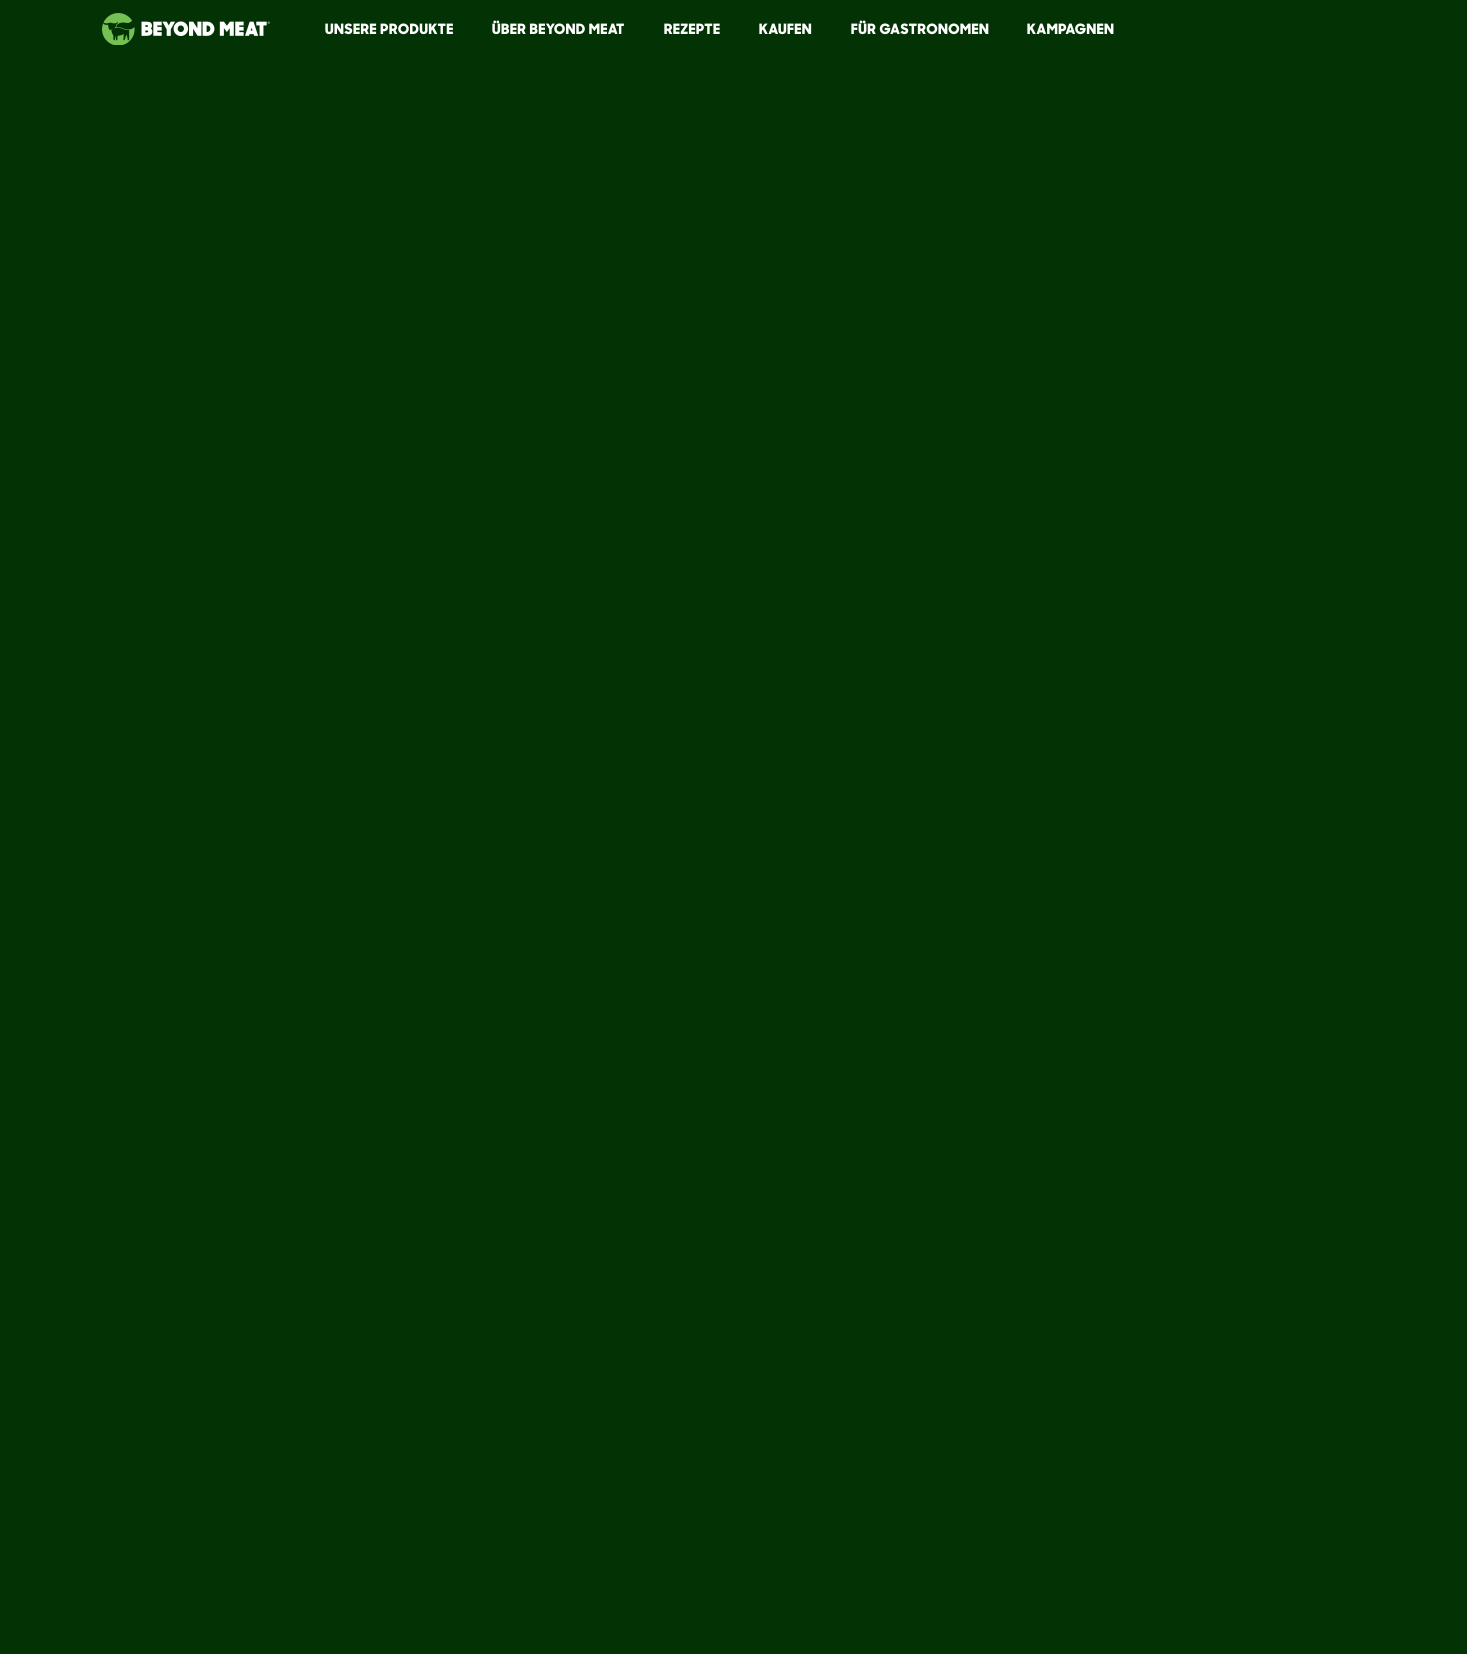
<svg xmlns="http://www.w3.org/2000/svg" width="1467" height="1654">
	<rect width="100%" height="100%" fill="#033305" />
	<image x="102" y="13" width="33" height="32" href="assets/img1.png" />
	<image x="141" y="21" width="129" height="16" href="assets/img2.png" />
	<image x="325" y="23" width="128" height="12" href="assets/img3.png" />
	<image x="492" y="20" width="132" height="15" href="assets/img4.png" />
	<image x="664" y="23" width="56" height="11" href="assets/img5.png" />
	<image x="759" y="23" width="53" height="12" href="assets/img6.png" />
	<image x="851" y="20" width="138" height="15" href="assets/img7.png" />
	<image x="1027" y="23" width="87" height="12" href="assets/img8.png" />
</svg>
